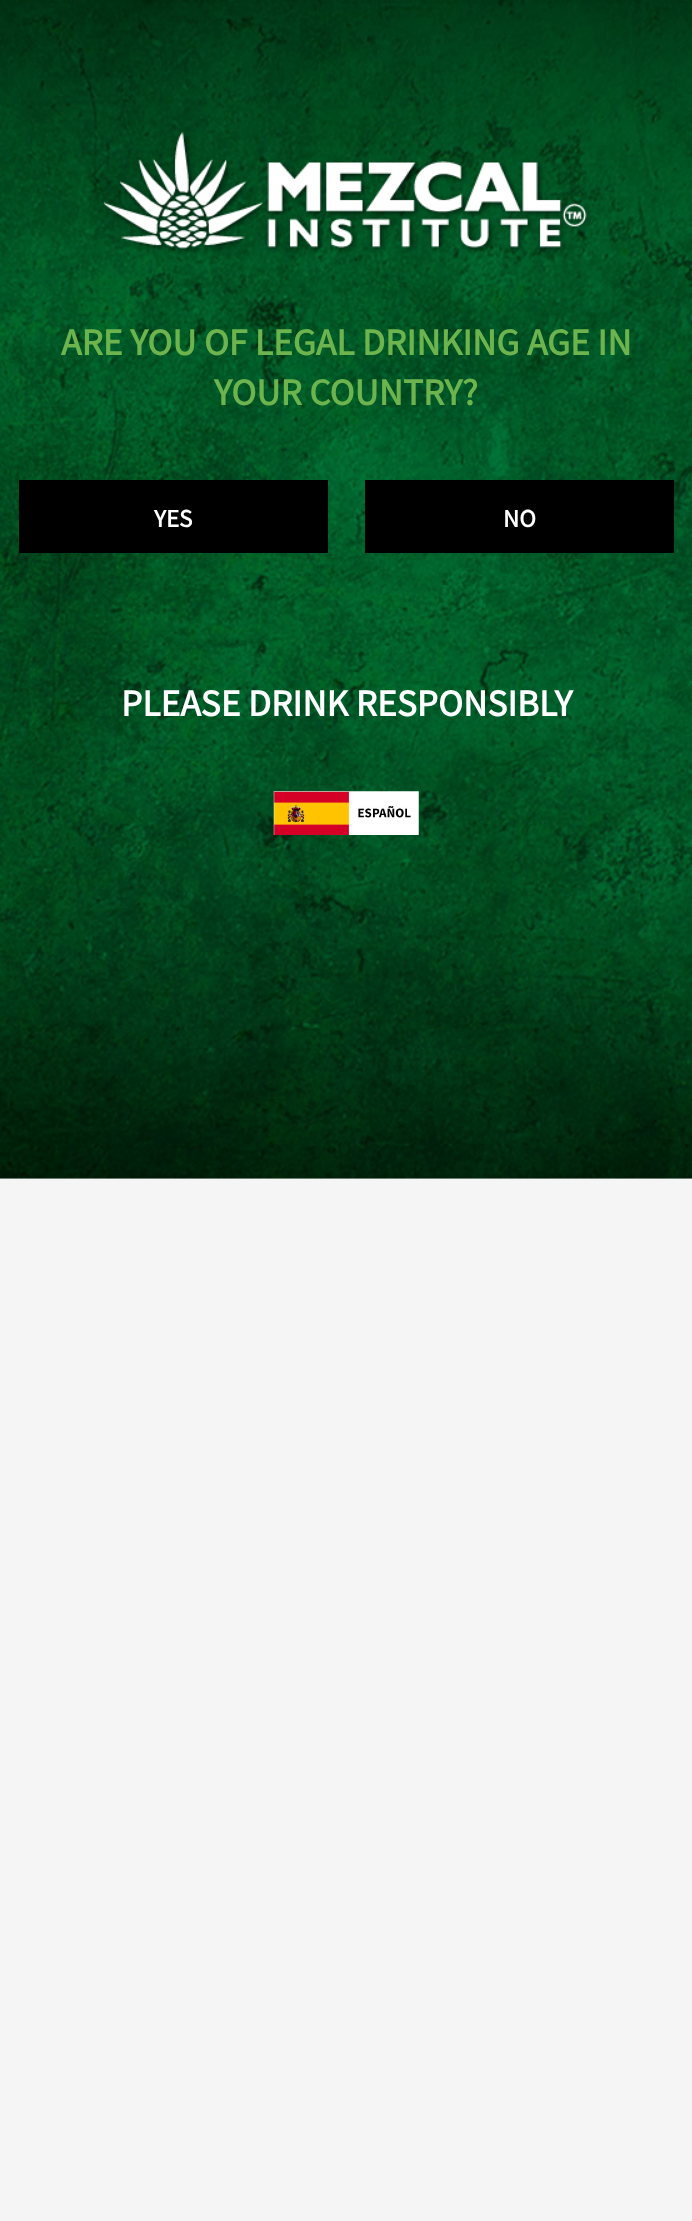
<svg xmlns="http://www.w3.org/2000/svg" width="692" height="2221">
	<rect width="100%" height="100%" fill="#F5F5F5" />
	<image x="0" y="0" width="692" height="1179" href="assets/img1.png" />
	<image x="103" y="132" width="488" height="122" href="assets/img2.png" />
	<g font-family="Source Sans Pro" font-size="37.5" font-weight="700" fill="#6EB44E">
		<text x="61" y="355">ARE YOU OF LEGAL DRINKING AGE IN</text>
		<text x="214" y="405">YOUR COUNTRY?</text>
	</g>
	<rect x="19" y="480" width="309" height="73" fill="#000000" />
	<text x="154" y="527" font-family="Source Sans Pro" font-size="25" font-weight="700" fill="#FFFFFF">YES</text>
	<rect x="365" y="480" width="309" height="73" fill="#000000" />
	<text x="503" y="527" font-family="Source Sans Pro" font-size="25" font-weight="700" fill="#FFFFFF">NO</text>
	<text x="121" y="716" font-family="Source Sans Pro" font-size="37.5" font-weight="700" fill="#FFFFFF">PLEASE DRINK RESPONSIBLY</text>
	<image x="273" y="791" width="146" height="44" href="assets/img3.png" />
</svg>
